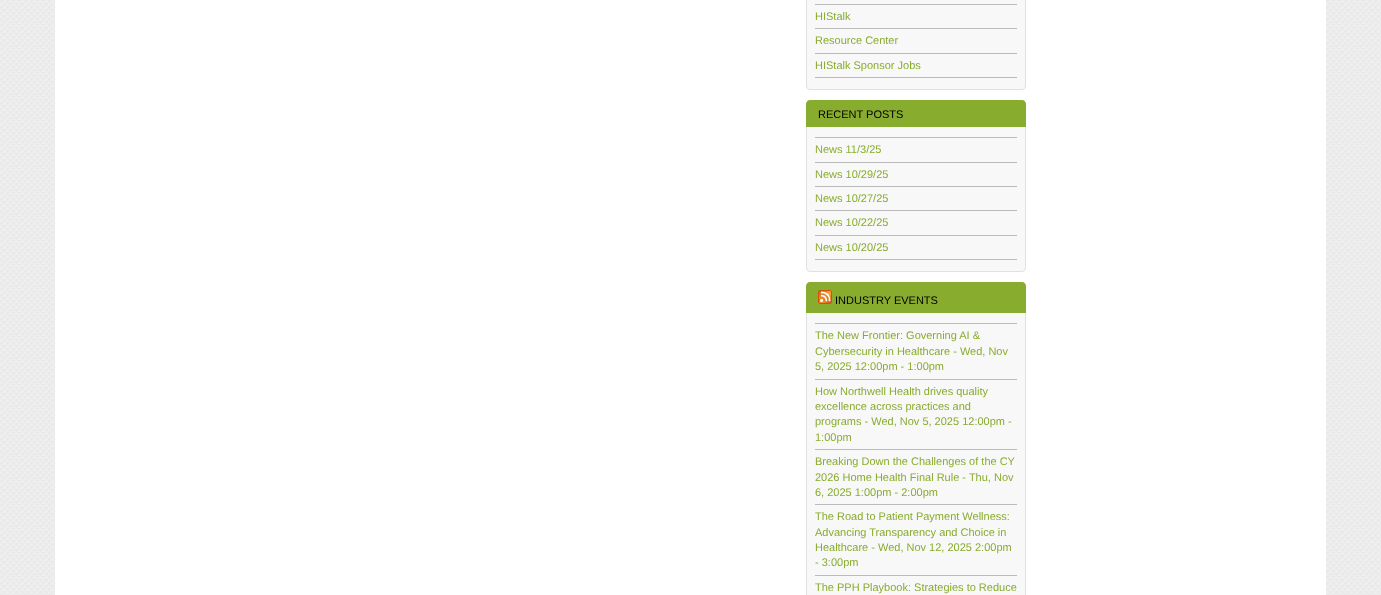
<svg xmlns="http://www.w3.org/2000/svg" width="1381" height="595">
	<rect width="100%" height="100%" fill="#FFFFFF" />
	<image x="0" y="0" width="1381" height="595" href="assets/img1.png" />
	<rect x="55" y="0" width="1271" height="595" fill="#FFFFFF" />
	<rect x="806.5" y="-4.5" width="219" height="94" rx="3.5" fill="#F8F8F8" stroke="#E1E1E1" />
	<rect x="815" y="4" width="202" height="1" fill="#BBBBBB" />
	<rect x="815" y="28" width="202" height="1" fill="#BBBBBB" />
	<text x="815" y="20" font-family="Liberation Sans" font-size="11" fill="#88AC2E">HIStalk</text>
	<rect x="815" y="53" width="202" height="1" fill="#BBBBBB" />
	<text x="815" y="44" font-family="Liberation Sans" font-size="11" fill="#88AC2E">Resource Center</text>
	<rect x="815" y="77" width="202" height="1" fill="#BBBBBB" />
	<text x="815" y="69" font-family="Liberation Sans" font-size="11" fill="#88AC2E">HIStalk Sponsor Jobs</text>
	<rect x="806.5" y="100.5" width="219" height="171" rx="3.5" fill="#F8F8F8" stroke="#E1E1E1" />
	<path d="M810 100H1022C1024 100 1026 102 1026 104V127H806V104C806 102 808 100 810 100Z" fill="#88AC2E" />
	<text x="818" y="118" font-family="Liberation Sans" font-size="11" fill="#000000">RECENT POSTS</text>
	<rect x="815" y="137" width="202" height="1" fill="#BBBBBB" />
	<rect x="815" y="162" width="202" height="1" fill="#BBBBBB" />
	<text x="815" y="153" font-family="Liberation Sans" font-size="11" fill="#88AC2E">News 11/3/25</text>
	<rect x="815" y="186" width="202" height="1" fill="#BBBBBB" />
	<text x="815" y="178" font-family="Liberation Sans" font-size="11" fill="#88AC2E">News 10/29/25</text>
	<rect x="815" y="210" width="202" height="1" fill="#BBBBBB" />
	<text x="815" y="202" font-family="Liberation Sans" font-size="11" fill="#88AC2E">News 10/27/25</text>
	<rect x="815" y="235" width="202" height="1" fill="#BBBBBB" />
	<text x="815" y="226" font-family="Liberation Sans" font-size="11" fill="#88AC2E">News 10/22/25</text>
	<rect x="815" y="259" width="202" height="1" fill="#BBBBBB" />
	<text x="815" y="251" font-family="Liberation Sans" font-size="11" fill="#88AC2E">News 10/20/25</text>
	<rect x="806.5" y="282.5" width="219" height="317" rx="3.5" fill="#F8F8F8" stroke="#E1E1E1" />
	<path d="M810 282H1022C1024 282 1026 284 1026 286V313H806V286C806 284 808 282 810 282Z" fill="#88AC2E" />
	<image x="818" y="290" width="14" height="14" href="assets/img2.png" />
	<text x="835" y="304" font-family="Liberation Sans" font-size="11" fill="#000000">INDUSTRY EVENTS</text>
	<rect x="815" y="323" width="202" height="1" fill="#BBBBBB" />
	<rect x="815" y="379" width="202" height="1" fill="#BBBBBB" />
	<g font-family="Liberation Sans" font-size="11" fill="#88AC2E">
		<text x="815" y="339">The New Frontier: Governing AI &amp;</text>
		<text x="815" y="355">Cybersecurity in Healthcare - Wed, Nov</text>
		<text x="815" y="370">5, 2025 12:00pm - 1:00pm</text>
	</g>
	<rect x="815" y="449" width="202" height="1" fill="#BBBBBB" />
	<g font-family="Liberation Sans" font-size="11" fill="#88AC2E">
		<text x="815" y="395">How Northwell Health drives quality</text>
		<text x="815" y="410">excellence across practices and</text>
		<text x="815" y="425">programs - Wed, Nov 5, 2025 12:00pm -</text>
		<text x="815" y="441">1:00pm</text>
	</g>
	<rect x="815" y="504" width="202" height="1" fill="#BBBBBB" />
	<g font-family="Liberation Sans" font-size="11" fill="#88AC2E">
		<text x="815" y="465">Breaking Down the Challenges of the CY</text>
		<text x="815" y="481">2026 Home Health Final Rule - Thu, Nov</text>
		<text x="815" y="496">6, 2025 1:00pm - 2:00pm</text>
	</g>
	<rect x="815" y="575" width="202" height="1" fill="#BBBBBB" />
	<g font-family="Liberation Sans" font-size="11" fill="#88AC2E">
		<text x="815" y="520">The Road to Patient Payment Wellness:</text>
		<text x="815" y="536">Advancing Transparency and Choice in</text>
		<text x="815" y="551">Healthcare - Wed, Nov 12, 2025 2:00pm</text>
		<text x="815" y="566">- 3:00pm</text>
		<text x="815" y="591">The PPH Playbook: Strategies to Reduce</text>
	</g>
</svg>
